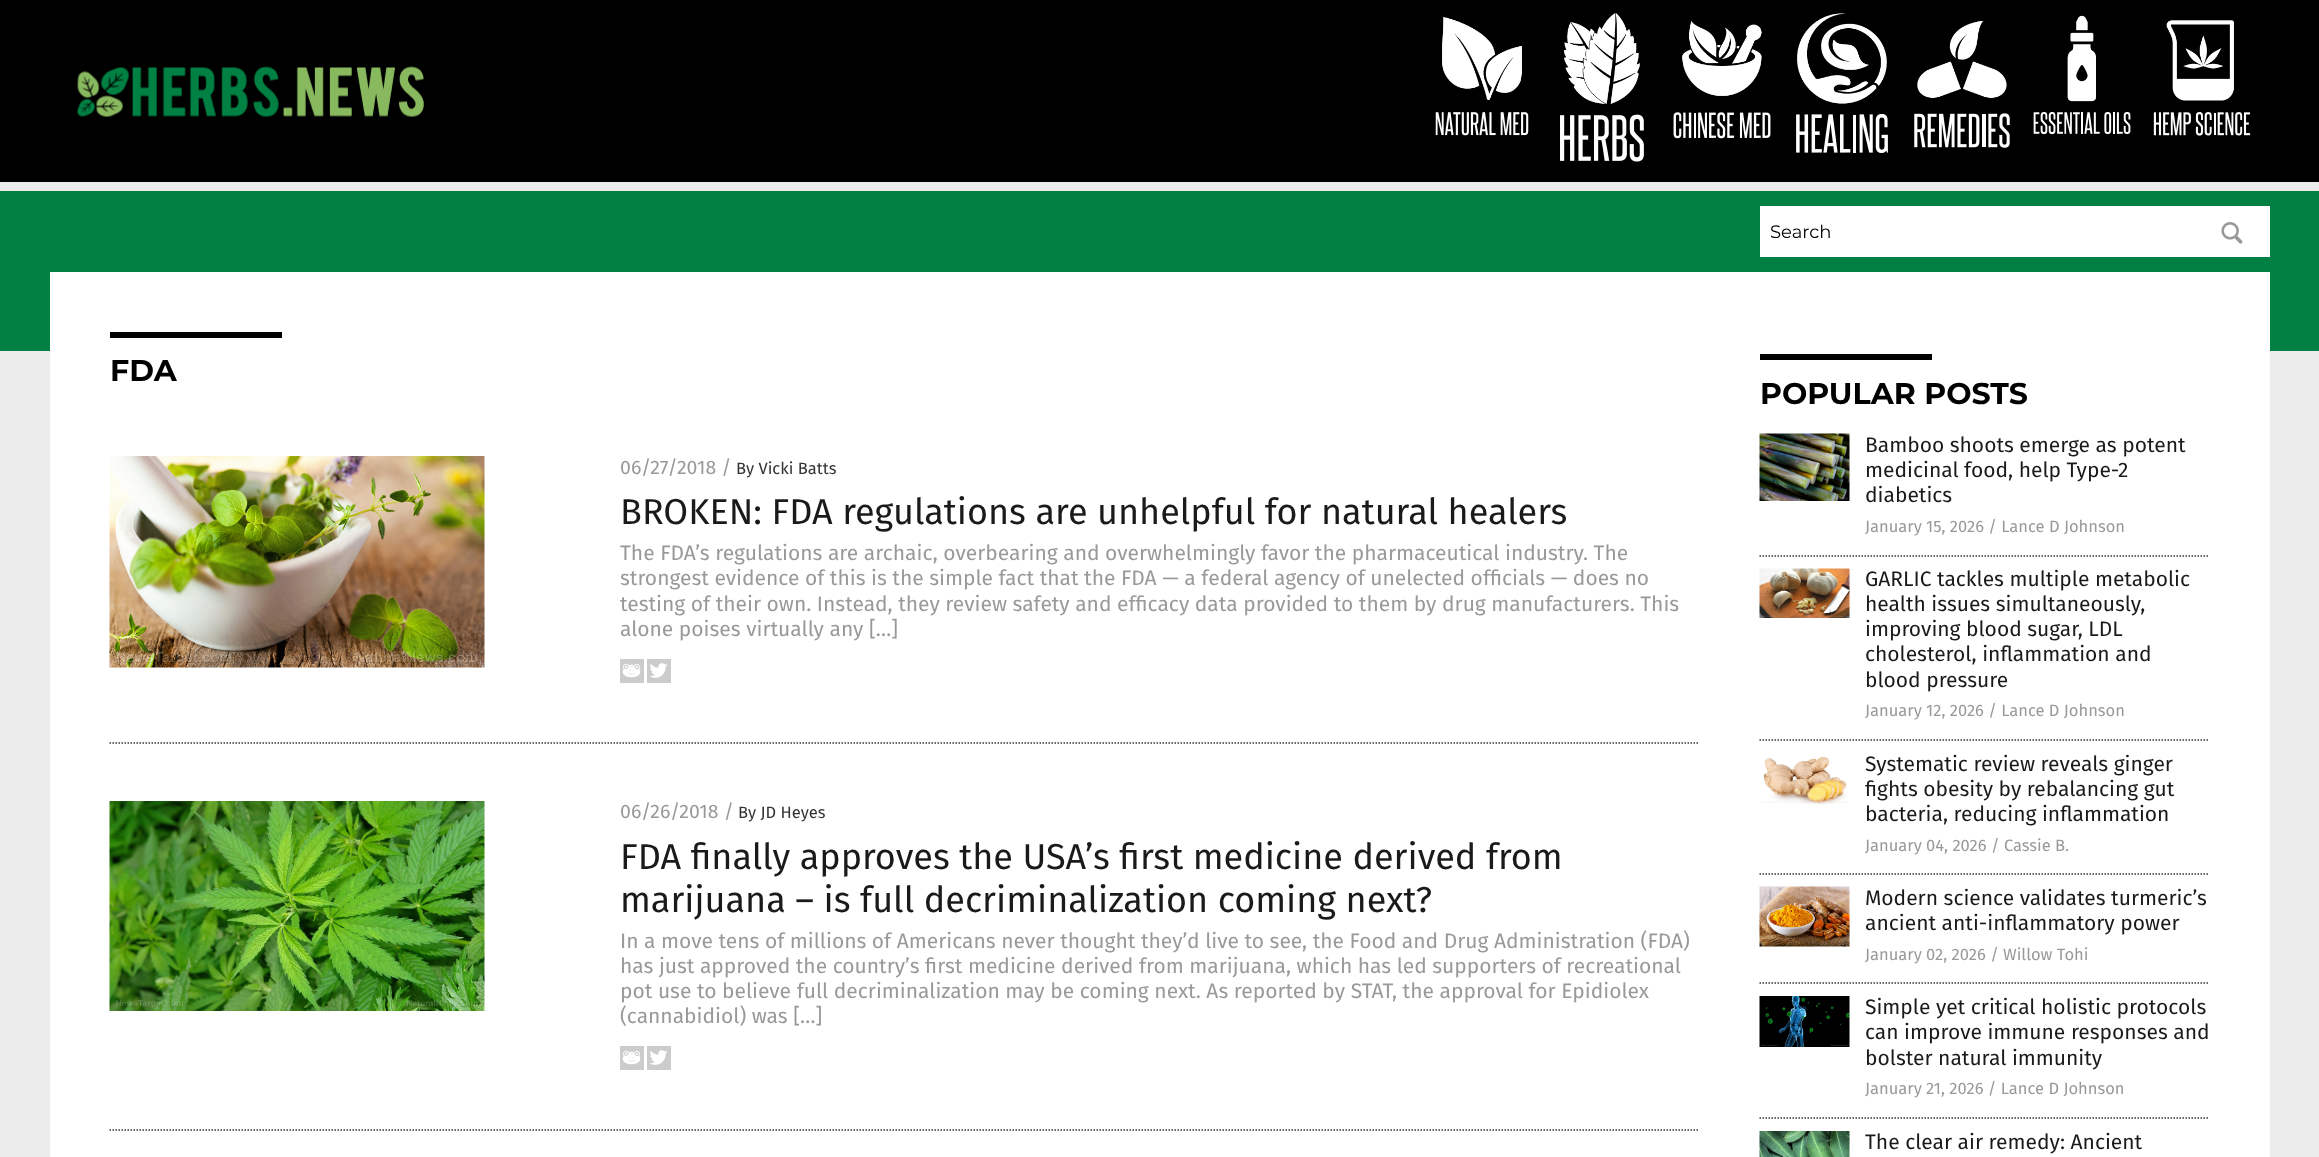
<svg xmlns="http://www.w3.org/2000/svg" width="2319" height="1157">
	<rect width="100%" height="100%" fill="#ECECEC" />
	<rect x="0" y="191" width="2319" height="160" fill="#008143" />
	<rect x="0" y="0" width="2319" height="182" fill="#000000" />
	<image x="77" y="66" width="347" height="51" href="assets/img1.png" />
	<image x="1442" y="17" width="81" height="83" href="assets/img2.png" />
	<image x="1435" y="112" width="94" height="24" href="assets/img3.png" />
	<image x="1564" y="13" width="76" height="91" href="assets/img4.png" />
	<image x="1560" y="114" width="84" height="48" href="assets/img5.png" />
	<image x="1682" y="21" width="80" height="75" href="assets/img6.png" />
	<image x="1673" y="112" width="98" height="27" href="assets/img7.png" />
	<image x="1797" y="13" width="90" height="91" href="assets/img8.png" />
	<image x="1796" y="113" width="92" height="40" href="assets/img9.png" />
	<image x="1917" y="20" width="90" height="78" href="assets/img10.png" />
	<image x="1914" y="113" width="96" height="35" href="assets/img11.png" />
	<image x="2067" y="15" width="29" height="87" href="assets/img12.png" />
	<image x="2033" y="112" width="98" height="23" href="assets/img13.png" />
	<image x="2166" y="20" width="68" height="81" href="assets/img14.png" />
	<image x="2153" y="112" width="98" height="24" href="assets/img15.png" />
	<rect x="1760" y="206" width="510" height="51" fill="#FFFFFF" />
	<text x="1770" y="238" font-family="Montserrat" font-size="18" fill="#000000">Search</text>
	<image x="2221" y="222" width="22" height="22" href="assets/img16.png" />
	<rect x="50" y="272" width="2220" height="885" fill="#FFFFFF" />
	<rect x="110" y="332" width="172" height="6" fill="#000000" />
	<text x="110" y="381" font-family="Montserrat" font-size="30" font-weight="700" fill="#000000">FDA</text>
	<path d="M109.5 743H1699.5" fill="none" stroke="#343434" stroke-width="1.5" stroke-dasharray="1.5 1.5" />
	<image x="109" y="456" width="376" height="212" href="assets/img17.png" />
	<text x="620" y="474" font-family="Fira Sans" font-size="19.5" fill="#999999">06/27/2018 /</text>
	<text x="736" y="474" font-family="Fira Sans" font-size="16.5" fill="#333333">By Vicki Batts</text>
	<text x="620" y="524" font-family="Fira Sans" font-size="36" fill="#1A1A1A">BROKEN: FDA regulations are unhelpful for natural healers</text>
	<g font-family="Fira Sans" font-size="21" fill="#999999">
		<text x="620" y="560">The FDA’s regulations are archaic, overbearing and overwhelmingly favor the pharmaceutical industry. The</text>
		<text x="620" y="585">strongest evidence of this is the simple fact that the FDA — a federal agency of unelected officials — does no</text>
		<text x="620" y="611">testing of their own. Instead, they review safety and efficacy data provided to them by drug manufacturers. This</text>
		<text x="620" y="636">alone poises virtually any […]</text>
	</g>
	<image x="620" y="659" width="24" height="24" href="assets/img18.png" />
	<image x="647" y="659" width="24" height="24" href="assets/img19.png" />
	<path d="M109.5 1130H1699.5" fill="none" stroke="#343434" stroke-width="1.5" stroke-dasharray="1.5 1.5" />
	<image x="109" y="801" width="376" height="210" href="assets/img20.png" />
	<text x="620" y="818" font-family="Fira Sans" font-size="19.5" fill="#999999">06/26/2018 /</text>
	<text x="738" y="818" font-family="Fira Sans" font-size="16.5" fill="#333333">By JD Heyes</text>
	<g font-family="Fira Sans" font-size="36" fill="#1A1A1A">
		<text x="620" y="869">FDA finally approves the USA’s first medicine derived from</text>
		<text x="620" y="912">marijuana – is full decriminalization coming next?</text>
	</g>
	<g font-family="Fira Sans" font-size="21" fill="#999999">
		<text x="620" y="948">In a move tens of millions of Americans never thought they’d live to see, the Food and Drug Administration (FDA)</text>
		<text x="620" y="973">has just approved the country’s first medicine derived from marijuana, which has led supporters of recreational</text>
		<text x="620" y="998">pot use to believe full decriminalization may be coming next. As reported by STAT, the approval for Epidiolex</text>
		<text x="620" y="1023">(cannabidiol) was […]</text>
	</g>
	<image x="620" y="1046" width="24" height="24" href="assets/img18.png" />
	<image x="647" y="1046" width="24" height="24" href="assets/img19.png" />
	<rect x="1760" y="354" width="172" height="6" fill="#000000" />
	<text x="1760" y="404" font-family="Montserrat" font-size="30" font-weight="700" fill="#000000">POPULAR POSTS</text>
	<path d="M1759.5 556H2209.5" fill="none" stroke="#343434" stroke-width="1.5" stroke-dasharray="1.5 1.5" />
	<image x="1759" y="433" width="91" height="68" href="assets/img21.png" />
	<g font-family="Fira Sans" font-size="21" fill="#1A1A1A">
		<text x="1865" y="452">Bamboo shoots emerge as potent</text>
		<text x="1865" y="477">medicinal food, help Type-2</text>
		<text x="1865" y="502">diabetics</text>
	</g>
	<text x="1865" y="532" font-family="Fira Sans" font-size="16.5" fill="#999999">January 15, 2026 / Lance D Johnson</text>
	<path d="M1759.5 740H2209.5" fill="none" stroke="#343434" stroke-width="1.5" stroke-dasharray="1.5 1.5" />
	<image x="1759" y="568" width="91" height="50" href="assets/img22.png" />
	<g font-family="Fira Sans" font-size="21" fill="#1A1A1A">
		<text x="1865" y="586">GARLIC tackles multiple metabolic</text>
		<text x="1865" y="611">health issues simultaneously,</text>
		<text x="1865" y="636">improving blood sugar, LDL</text>
		<text x="1865" y="661">cholesterol, inflammation and</text>
		<text x="1865" y="687">blood pressure</text>
	</g>
	<text x="1865" y="716" font-family="Fira Sans" font-size="16.5" fill="#999999">January 12, 2026 / Lance D Johnson</text>
	<path d="M1759.5 874H2209.5" fill="none" stroke="#343434" stroke-width="1.5" stroke-dasharray="1.5 1.5" />
	<image x="1761" y="756" width="87" height="48" href="assets/img23.png" />
	<g font-family="Fira Sans" font-size="21" fill="#1A1A1A">
		<text x="1865" y="771">Systematic review reveals ginger</text>
		<text x="1865" y="796">fights obesity by rebalancing gut</text>
		<text x="1865" y="821">bacteria, reducing inflammation</text>
	</g>
	<text x="1865" y="851" font-family="Fira Sans" font-size="16.5" fill="#999999">January 04, 2026 / Cassie B.</text>
	<path d="M1759.5 983H2209.5" fill="none" stroke="#343434" stroke-width="1.5" stroke-dasharray="1.5 1.5" />
	<image x="1759" y="886" width="91" height="61" href="assets/img24.png" />
	<g font-family="Fira Sans" font-size="21" fill="#1A1A1A">
		<text x="1865" y="905">Modern science validates turmeric’s</text>
		<text x="1865" y="930">ancient anti-inflammatory power</text>
	</g>
	<text x="1865" y="960" font-family="Fira Sans" font-size="16.5" fill="#999999">January 02, 2026 / Willow Tohi</text>
	<path d="M1759.5 1118H2209.5" fill="none" stroke="#343434" stroke-width="1.5" stroke-dasharray="1.5 1.5" />
	<image x="1759" y="996" width="91" height="51" href="assets/img25.png" />
	<g font-family="Fira Sans" font-size="21" fill="#1A1A1A">
		<text x="1865" y="1014">Simple yet critical holistic protocols</text>
		<text x="1865" y="1039">can improve immune responses and</text>
		<text x="1865" y="1065">bolster natural immunity</text>
	</g>
	<text x="1865" y="1094" font-family="Fira Sans" font-size="16.5" fill="#999999">January 21, 2026 / Lance D Johnson</text>
	<image x="1759" y="1131" width="91" height="26" href="assets/img26.png" />
	<text x="1865" y="1149" font-family="Fira Sans" font-size="21" fill="#1A1A1A">The clear air remedy: Ancient</text>
</svg>
